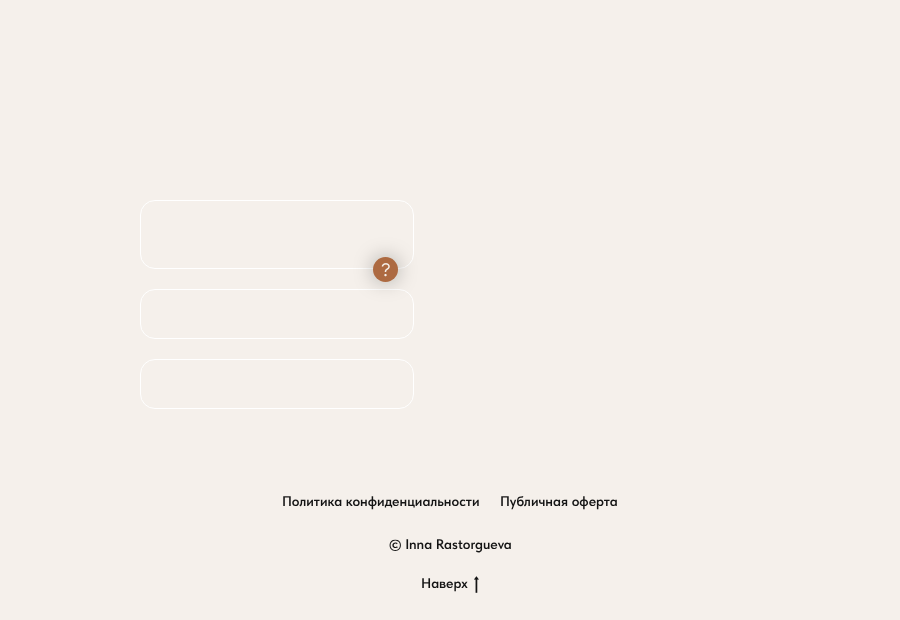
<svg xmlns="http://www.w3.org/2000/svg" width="900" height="620">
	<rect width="100%" height="100%" fill="#F5F0EB" />
	<rect x="140.5" y="200.5" width="273" height="68" rx="14.5" fill="none" stroke="#FFFFFF" />
	<rect x="140.5" y="289.5" width="273" height="49" rx="14.5" fill="none" stroke="#FFFFFF" />
	<rect x="373" y="257" width="25" height="25" rx="12.5" fill="#000000" fill-opacity="0.3" filter="blur(10px)" />
	<circle cx="385.5" cy="269.5" r="12.5" fill="#AD6A41" />
	<image x="381" y="263" width="9" height="14" href="assets/img1.png" />
	<rect x="140.5" y="359.5" width="273" height="49" rx="14.5" fill="none" stroke="#FFFFFF" />
	<g font-family="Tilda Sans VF" font-size="14" font-weight="600" fill="#141414">
		<text x="282" y="506">Политика конфиденциальности</text>
		<text x="500" y="506">Публичная оферта</text>
		<text x="389" y="549">© Inna Rastorgueva</text>
		<text x="421" y="588">Наверх</text>
	</g>
	<image x="474" y="576" width="5" height="17" href="assets/img2.png" />
</svg>
